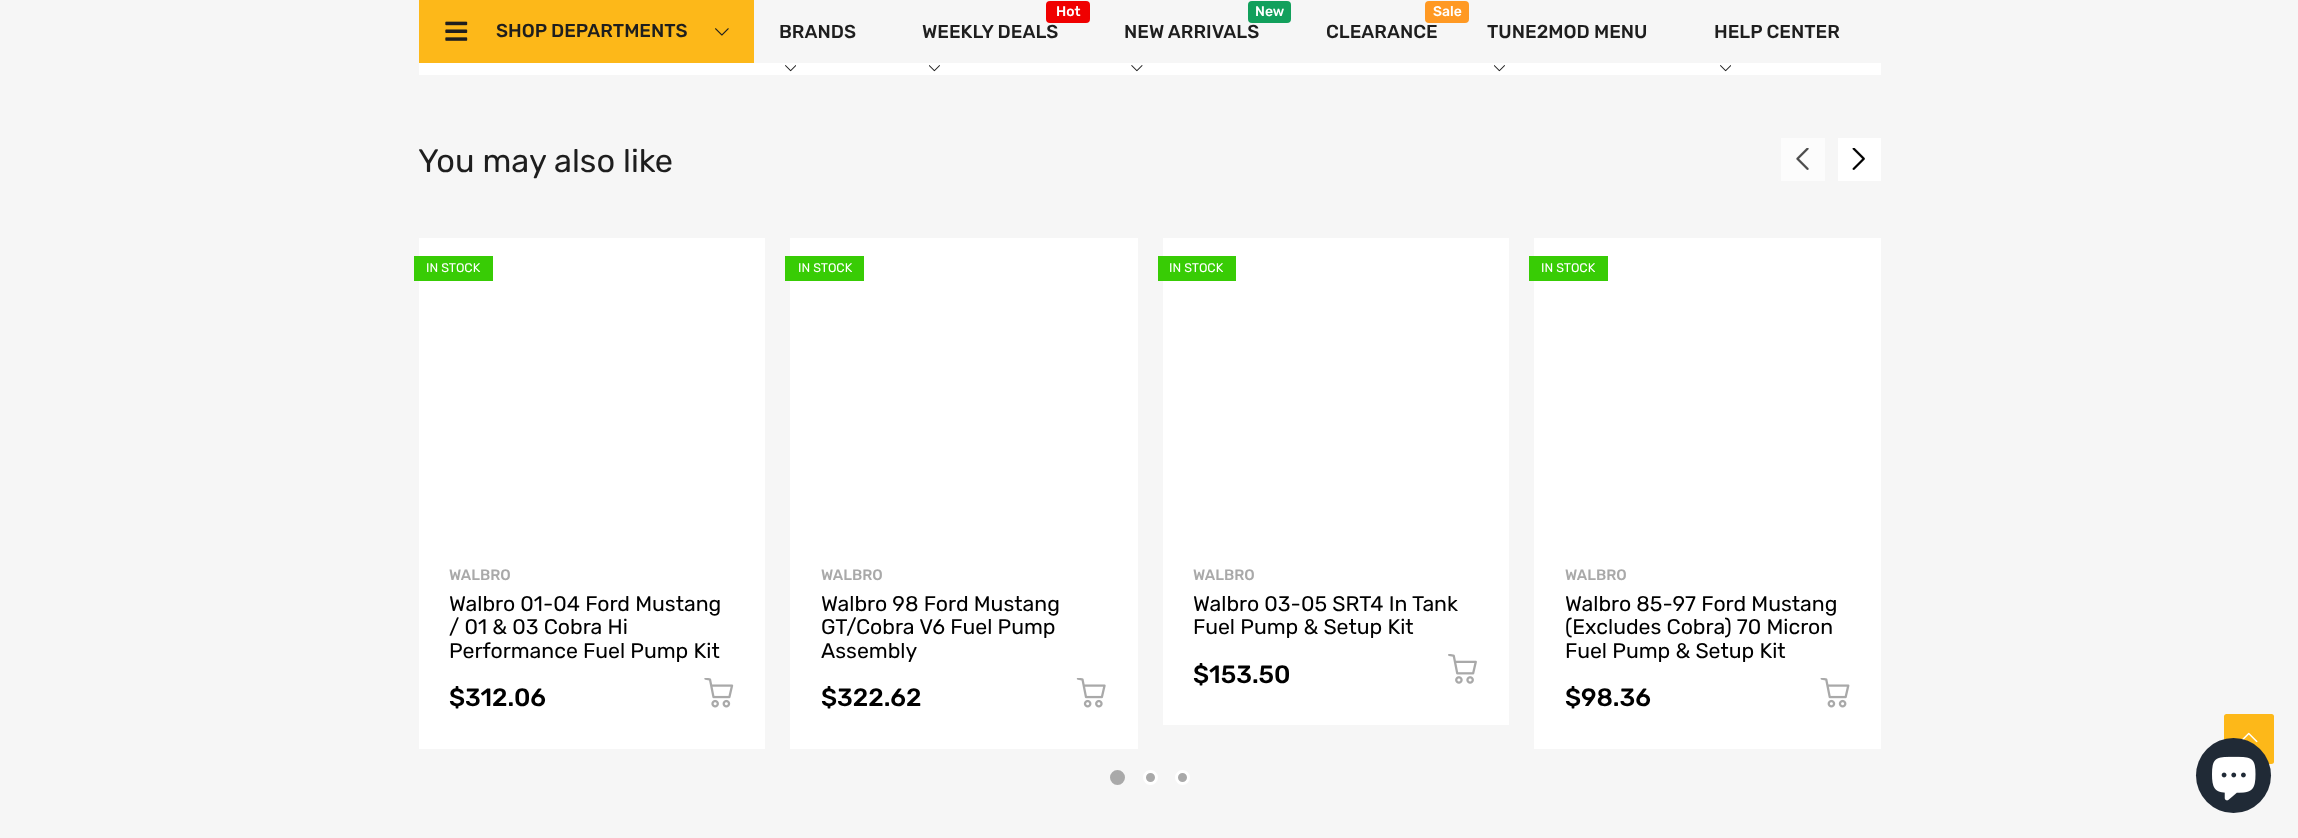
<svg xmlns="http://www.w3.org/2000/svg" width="2298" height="838">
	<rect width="100%" height="100%" fill="#F6F6F6" />
	<rect x="419" y="0" width="335" height="63" fill="#FDB819" />
	<image x="445" y="21" width="23" height="20" href="assets/img1.png" />
	<text x="496" y="37" font-family="Rubik" font-size="18.75" font-weight="500" fill="#1E1E1E">SHOP DEPARTMENTS</text>
	<image x="715" y="28" width="14" height="8" href="assets/img2.png" />
	<text x="779" y="38" font-family="Rubik" font-size="18.75" font-weight="500" fill="#1E1E1E">BRANDS</text>
	<rect x="419" y="63" width="1462" height="12" fill="#FFFFFF" />
	<image x="785" y="65" width="11" height="7" href="assets/img3.png" />
	<rect x="1046" y="1" width="44" height="22" rx="4" fill="#F00000" />
	<text x="1056" y="16" font-family="Rubik" font-size="14" font-weight="500" fill="#FFFFFF">Hot</text>
	<text x="922" y="38" font-family="Rubik" font-size="18.75" font-weight="500" fill="#1E1E1E">WEEKLY DEALS</text>
	<image x="929" y="65" width="11" height="7" href="assets/img4.png" />
	<rect x="1248" y="1" width="43" height="22" rx="4" fill="#12A05C" />
	<text x="1255" y="16" font-family="Rubik" font-size="14" font-weight="500" fill="#FFFFFF">New</text>
	<text x="1124" y="38" font-family="Rubik" font-size="18.75" font-weight="500" fill="#1E1E1E">NEW ARRIVALS</text>
	<image x="1131" y="65" width="12" height="7" href="assets/img5.png" />
	<rect x="1425" y="1" width="44" height="22" rx="4" fill="#FF9923" />
	<text x="1433" y="16" font-family="Rubik" font-size="14" font-weight="500" fill="#FFFFFF">Sale</text>
	<g font-family="Rubik" font-size="18.75" font-weight="500" fill="#1E1E1E">
		<text x="1326" y="38">CLEARANCE</text>
		<text x="1487" y="38">TUNE2MOD MENU</text>
	</g>
	<image x="1494" y="65" width="11" height="7" href="assets/img4.png" />
	<text x="1714" y="38" font-family="Rubik" font-size="18.75" font-weight="500" fill="#1E1E1E">HELP CENTER</text>
	<image x="1720" y="65" width="11" height="7" href="assets/img3.png" />
	<text x="418" y="172" font-family="Rubik" font-size="32.5" fill="#1E1E1E">You may also like</text>
	<rect x="1781" y="138" width="44" height="43" fill="#FCFCFC" />
	<image x="1796" y="148" width="13" height="22" href="assets/img6.png" />
	<rect x="1838" y="138" width="43" height="43" fill="#FFFFFF" />
	<image x="1852" y="148" width="13" height="22" href="assets/img7.png" />
	<rect x="419" y="238" width="346" height="511" fill="#FFFFFF" />
	<rect x="414" y="256" width="79" height="25" fill="#38CC05" />
	<text x="426" y="272" font-family="Rubik" font-size="12.5" fill="#FFFFFF">IN STOCK</text>
	<text x="449" y="580" font-family="Rubik" font-size="15" font-weight="500" fill="#A9A9A9">WALBRO</text>
	<g font-family="Rubik" font-size="21.25" fill="#000000">
		<text x="449" y="611">Walbro 01-04 Ford Mustang</text>
		<text x="449" y="634">/ 01 &amp; 03 Cobra Hi</text>
		<text x="449" y="658">Performance Fuel Pump Kit</text>
	</g>
	<text x="449" y="706" font-family="Rubik" font-size="25" font-weight="500" fill="#000000">$312.06</text>
	<image x="704" y="678" width="30" height="30" href="assets/img8.png" />
	<rect x="790" y="238" width="348" height="511" fill="#FFFFFF" />
	<rect x="785" y="256" width="79" height="25" fill="#38CC05" />
	<text x="798" y="272" font-family="Rubik" font-size="12.5" fill="#FFFFFF">IN STOCK</text>
	<text x="821" y="580" font-family="Rubik" font-size="15" font-weight="500" fill="#A9A9A9">WALBRO</text>
	<g font-family="Rubik" font-size="21.25" fill="#000000">
		<text x="821" y="611">Walbro 98 Ford Mustang</text>
		<text x="821" y="634">GT/Cobra V6 Fuel Pump</text>
		<text x="821" y="658">Assembly</text>
	</g>
	<text x="821" y="706" font-family="Rubik" font-size="25" font-weight="500" fill="#000000">$322.62</text>
	<image x="1076" y="678" width="30" height="30" href="assets/img9.png" />
	<rect x="1163" y="238" width="346" height="487" fill="#FFFFFF" />
	<rect x="1158" y="256" width="78" height="25" fill="#38CC05" />
	<text x="1169" y="272" font-family="Rubik" font-size="12.5" fill="#FFFFFF">IN STOCK</text>
	<text x="1193" y="580" font-family="Rubik" font-size="15" font-weight="500" fill="#A9A9A9">WALBRO</text>
	<g font-family="Rubik" font-size="21.25" fill="#000000">
		<text x="1193" y="611">Walbro 03-05 SRT4 In Tank</text>
		<text x="1193" y="634">Fuel Pump &amp; Setup Kit</text>
	</g>
	<text x="1193" y="683" font-family="Rubik" font-size="25" font-weight="500" fill="#000000">$153.50</text>
	<image x="1448" y="654" width="29" height="30" href="assets/img10.png" />
	<rect x="1534" y="238" width="347" height="511" fill="#FFFFFF" />
	<rect x="1529" y="256" width="79" height="25" fill="#38CC05" />
	<text x="1541" y="272" font-family="Rubik" font-size="12.5" fill="#FFFFFF">IN STOCK</text>
	<text x="1565" y="580" font-family="Rubik" font-size="15" font-weight="500" fill="#A9A9A9">WALBRO</text>
	<g font-family="Rubik" font-size="21.25" fill="#000000">
		<text x="1565" y="611">Walbro 85-97 Ford Mustang</text>
		<text x="1565" y="634">(Excludes Cobra) 70 Micron</text>
		<text x="1565" y="658">Fuel Pump &amp; Setup Kit</text>
	</g>
	<text x="1565" y="706" font-family="Rubik" font-size="25" font-weight="500" fill="#000000">$98.36</text>
	<image x="1820" y="678" width="30" height="30" href="assets/img11.png" />
	<circle cx="1117.5" cy="777.5" r="6" fill="#A9A9A9" stroke="#A9A9A9" stroke-width="3" />
	<circle cx="1150.5" cy="777.5" r="6" fill="#A9A9A9" stroke="#FFFFFF" stroke-width="3" />
	<circle cx="1182.5" cy="777.5" r="6" fill="#A9A9A9" stroke="#FFFFFF" stroke-width="3" />
	<rect x="2224" y="714" width="50" height="50" rx="2.5" fill="#FDB819" />
	<image x="2242" y="732" width="16" height="11" href="assets/img12.png" />
	<circle cx="2233.5" cy="775.5" r="37.5" fill="#202A36" />
	<image x="2212" y="756" width="44" height="45" href="assets/img13.png" />
</svg>
